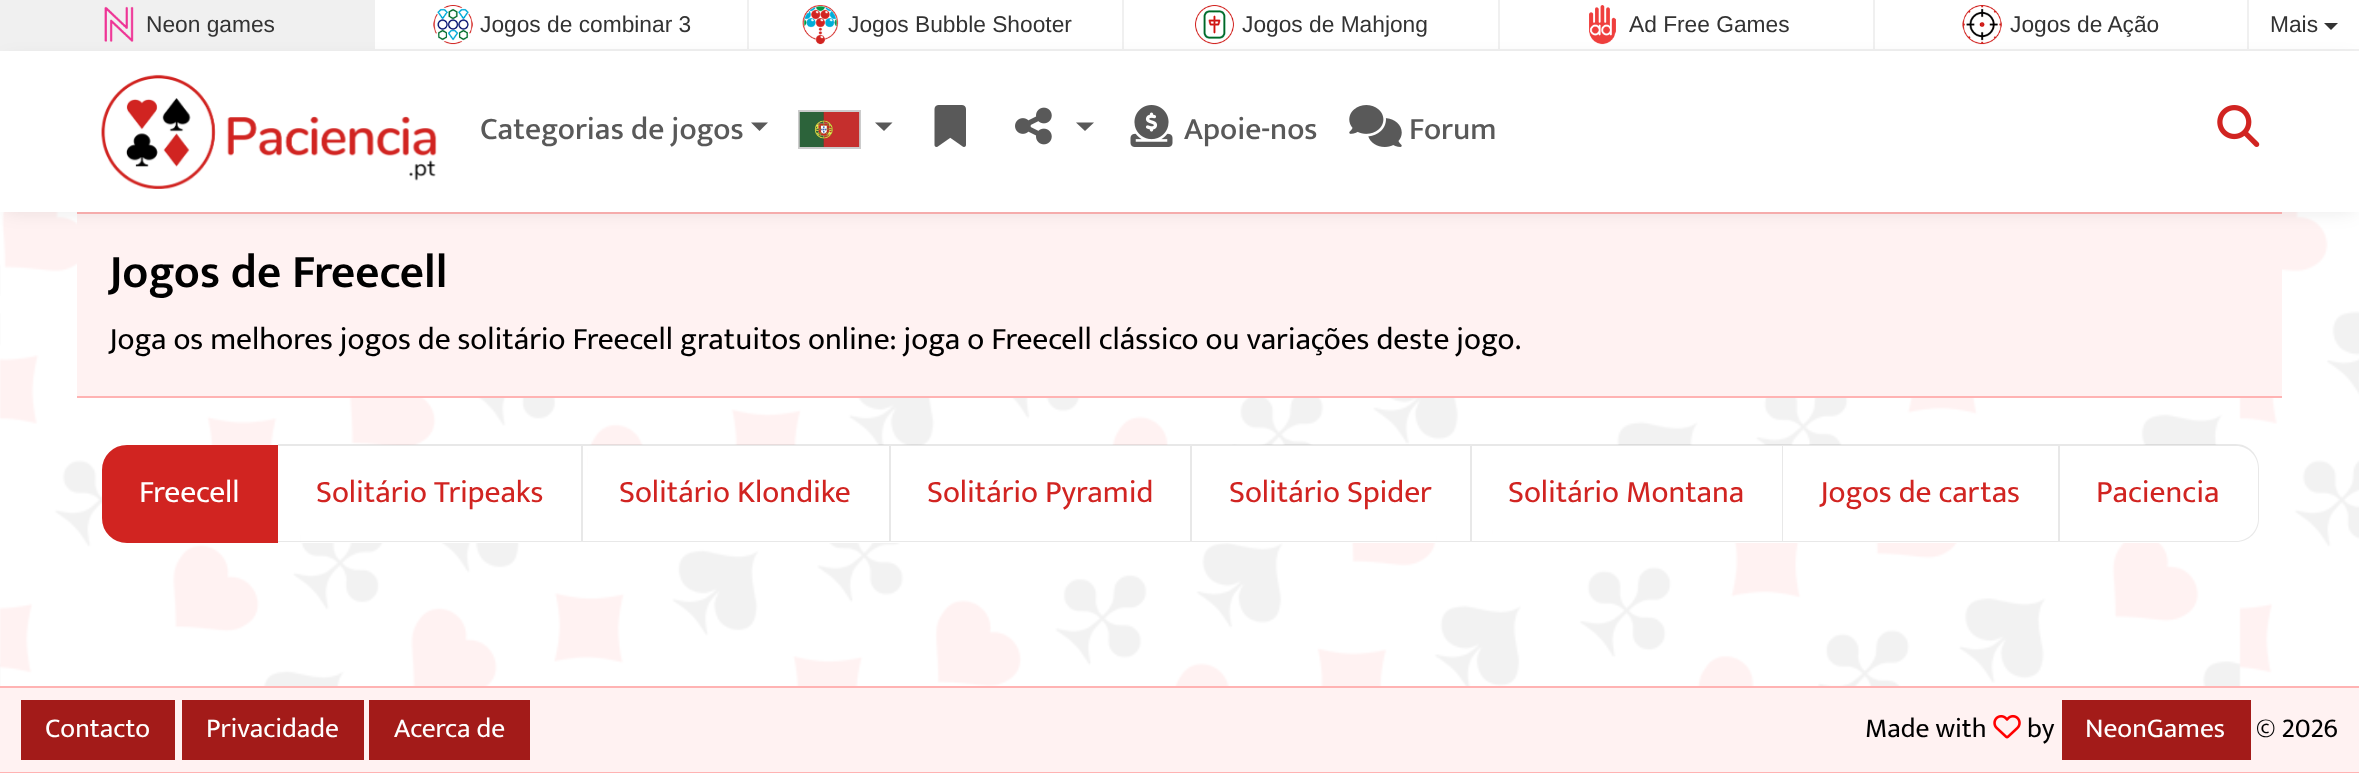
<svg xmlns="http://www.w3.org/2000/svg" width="2359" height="773">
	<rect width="100%" height="100%" fill="#FFFFFF" />
	<image x="0" y="212" width="2359" height="474" href="assets/img1.png" />
	<rect x="0" y="49" width="2359" height="2" fill="#F0F0F0" />
	<rect x="0" y="0" width="375" height="49" fill="#F0F0F0" />
	<image x="104" y="6" width="30" height="36" href="assets/img2.png" />
	<text x="146" y="32" font-family="Liberation Sans" font-size="22.75" fill="#333333">Neon games</text>
	<image x="433" y="5" width="40" height="40" href="assets/img3.png" />
	<text x="480" y="32" font-family="Liberation Sans" font-size="22.75" fill="#333333">Jogos de combinar 3</text>
	<rect x="747" y="0" width="2" height="49" fill="#F0F0F0" />
	<image x="802" y="5" width="37" height="40" href="assets/img4.png" />
	<text x="848" y="32" font-family="Liberation Sans" font-size="22.75" fill="#333333">Jogos Bubble Shooter</text>
	<rect x="1122" y="0" width="2" height="49" fill="#F0F0F0" />
	<image x="1195" y="5" width="39" height="40" href="assets/img5.png" />
	<text x="1242" y="32" font-family="Liberation Sans" font-size="22.75" fill="#333333">Jogos de Mahjong</text>
	<rect x="1498" y="0" width="2" height="49" fill="#F0F0F0" />
	<image x="1589" y="5" width="27" height="40" href="assets/img6.png" />
	<text x="1629" y="32" font-family="Liberation Sans" font-size="22.75" fill="#333333">Ad Free Games</text>
	<rect x="1873" y="0" width="2" height="49" fill="#F0F0F0" />
	<image x="1962" y="5" width="40" height="40" href="assets/img7.png" />
	<text x="2010" y="32" font-family="Liberation Sans" font-size="22.75" fill="#333333">Jogos de Ação</text>
	<rect x="2247" y="0" width="2" height="49" fill="#F0F0F0" />
	<text x="2270" y="32" font-family="Liberation Sans" font-size="22.75" fill="#333333">Mais</text>
	<path d="M2324 23H2338L2331 30Z" fill="#333333" />
	<rect x="77" y="214" width="2205" height="182" fill="#FFF2F2" />
	<rect x="77" y="212" width="2205" height="2" fill="#FFB3B3" />
	<rect x="5" y="61" width="2349" height="149" fill="#000000" fill-opacity="0.1" filter="blur(10px)" />
	<rect x="0" y="51" width="2359" height="161" fill="#FFFFFF" />
	<image x="101" y="74" width="336" height="115" href="assets/img8.png" />
	<text x="480" y="139" font-family="Mukta" font-size="31.5" font-weight="500" fill="#595959">Categorias de jogos</text>
	<path d="M751 122.5H768L759.5 131Z" fill="#595959" />
	<image x="799" y="112" width="61" height="35" href="assets/img9.png" />
	<rect x="799" y="111" width="61" height="37" fill="none" stroke="#000000" stroke-opacity="0.2" stroke-width="2" />
	<path d="M875 122.5H892.5L884 131Z" fill="#595959" />
	<image x="934" y="105" width="32" height="42" href="assets/img10.png" />
	<image x="1015" y="107" width="37" height="38" href="assets/img11.png" />
	<path d="M1076 122.5H1094L1085 131Z" fill="#595959" />
	<image x="1130" y="105" width="43" height="42" href="assets/img12.png" />
	<text x="1184" y="139" font-family="Mukta" font-size="31.5" font-weight="500" fill="#595959">Apoie-nos</text>
	<image x="1349" y="105" width="53" height="42" href="assets/img13.png" />
	<text x="1409" y="139" font-family="Mukta" font-size="31.5" font-weight="500" fill="#595959">Forum</text>
	<image x="2217" y="105" width="43" height="42" href="assets/img14.png" />
	<rect x="77" y="396" width="2205" height="2" fill="#FFB3B3" />
	<text x="109" y="287" font-family="Mukta" font-size="47.25" font-weight="600" fill="#000000">Jogos de Freecell</text>
	<text x="109" y="349" font-family="Mukta" font-size="31.5" fill="#000000">Joga os melhores jogos de solitário Freecell gratuitos online: joga o Freecell clássico ou variações deste jogo.</text>
	<path d="M127 446H277V542H127C113.5 542 103 531.5 103 518V470C103 456.5 113.5 446 127 446Z" fill="#D12421" stroke="#D12421" stroke-width="2" />
	<text x="139" y="502" font-family="Mukta" font-size="31.5" fill="#FFFFFF">Freecell</text>
	<rect x="301" y="445" width="219" height="98" fill="#FFFFFF" />
	<path d="M278 444H583L581 446H278Z" fill="#000000" fill-opacity="0.09" />
	<path d="M583 444V542L581 541V446Z" fill="#000000" fill-opacity="0.09" />
	<path d="M583 542H278V541H581Z" fill="#000000" fill-opacity="0.09" />
	<text x="316" y="502" font-family="Mukta" font-size="31.5" fill="#D12421">Solitário Tripeaks</text>
	<rect x="588" y="445" width="848" height="98" fill="#FFFFFF" />
	<path d="M583 444H891L889 446H583Z" fill="#000000" fill-opacity="0.09" />
	<path d="M891 444V542L889 541V446Z" fill="#000000" fill-opacity="0.09" />
	<path d="M891 542H583V541H889Z" fill="#000000" fill-opacity="0.09" />
	<text x="619" y="502" font-family="Mukta" font-size="31.5" fill="#D12421">Solitário Klondike</text>
	<path d="M891 444H1192L1190 446H891Z" fill="#000000" fill-opacity="0.09" />
	<path d="M1192 444V542L1190 541V446Z" fill="#000000" fill-opacity="0.09" />
	<path d="M1192 542H891V541H1190Z" fill="#000000" fill-opacity="0.09" />
	<text x="927" y="502" font-family="Mukta" font-size="31.5" fill="#D12421">Solitário Pyramid</text>
	<path d="M1192 444H1472L1470 446H1192Z" fill="#000000" fill-opacity="0.09" />
	<path d="M1472 444V542L1470 541V446Z" fill="#000000" fill-opacity="0.09" />
	<path d="M1472 542H1192V541H1470Z" fill="#000000" fill-opacity="0.09" />
	<text x="1229" y="502" font-family="Mukta" font-size="31.5" fill="#D12421">Solitário Spider</text>
	<rect x="1493" y="445" width="567" height="98" fill="#FFFFFF" />
	<path d="M1472 444H1783L1782 446H1472Z" fill="#000000" fill-opacity="0.09" />
	<path d="M1783 444V542L1782 541V446Z" fill="#000000" fill-opacity="0.09" />
	<path d="M1783 542H1472V541H1782Z" fill="#000000" fill-opacity="0.09" />
	<text x="1508" y="502" font-family="Mukta" font-size="31.5" fill="#D12421">Solitário Montana</text>
	<path d="M1783 444H2060L2058 446H1783Z" fill="#000000" fill-opacity="0.09" />
	<path d="M2060 444V542L2058 541V446Z" fill="#000000" fill-opacity="0.09" />
	<path d="M2060 542H1783V541H2058Z" fill="#000000" fill-opacity="0.09" />
	<text x="1820" y="502" font-family="Mukta" font-size="31.5" fill="#D12421">Jogos de cartas</text>
	<path d="M2060 445H2234C2248 445 2259 456 2259 470V518C2259 532 2248 543 2234 543H2060Z" fill="#FFFFFF" />
	<path d="M2060 444H2236C2249 444 2259 455 2259 468V519C2259 532 2249 542 2236 542H2060ZM2060 446H2236C2248 446 2258 456 2258 468V519C2258 531 2248 541 2236 541H2060Z" fill="#000000" fill-opacity="0.09" fill-rule="evenodd" />
	<text x="2096" y="502" font-family="Mukta" font-size="31.5" fill="#D12421">Paciencia</text>
	<rect x="0" y="688" width="2359" height="84" fill="#FFF2F2" />
	<rect x="0" y="686" width="2359" height="2" fill="#FFB3B3" />
	<rect x="0" y="772" width="2359" height="1" fill="#FFB3B3" />
	<rect x="21" y="700" width="154" height="60" fill="#A31B19" />
	<text x="45" y="737" font-family="Mukta" font-size="27.5" fill="#FFFFFF">Contacto</text>
	<rect x="182" y="700" width="182" height="60" fill="#A31B19" />
	<text x="206" y="737" font-family="Mukta" font-size="27.5" fill="#FFFFFF">Privacidade</text>
	<rect x="369" y="700" width="161" height="60" fill="#A31B19" />
	<text x="394" y="737" font-family="Mukta" font-size="27.5" fill="#FFFFFF">Acerca de</text>
	<text x="1865" y="737" font-family="Mukta" font-size="27.5" fill="#000000">Made with</text>
	<image x="1993" y="714" width="28" height="25" href="assets/img15.png" />
	<text x="2027" y="737" font-family="Mukta" font-size="27.5" fill="#000000">by</text>
	<rect x="2062" y="700" width="189" height="60" fill="#A31B19" />
	<text x="2085" y="737" font-family="Mukta" font-size="27.5" fill="#FFFFFF">NeonGames</text>
	<text x="2256" y="737" font-family="Mukta" font-size="27.5" fill="#000000">© 2026</text>
</svg>
